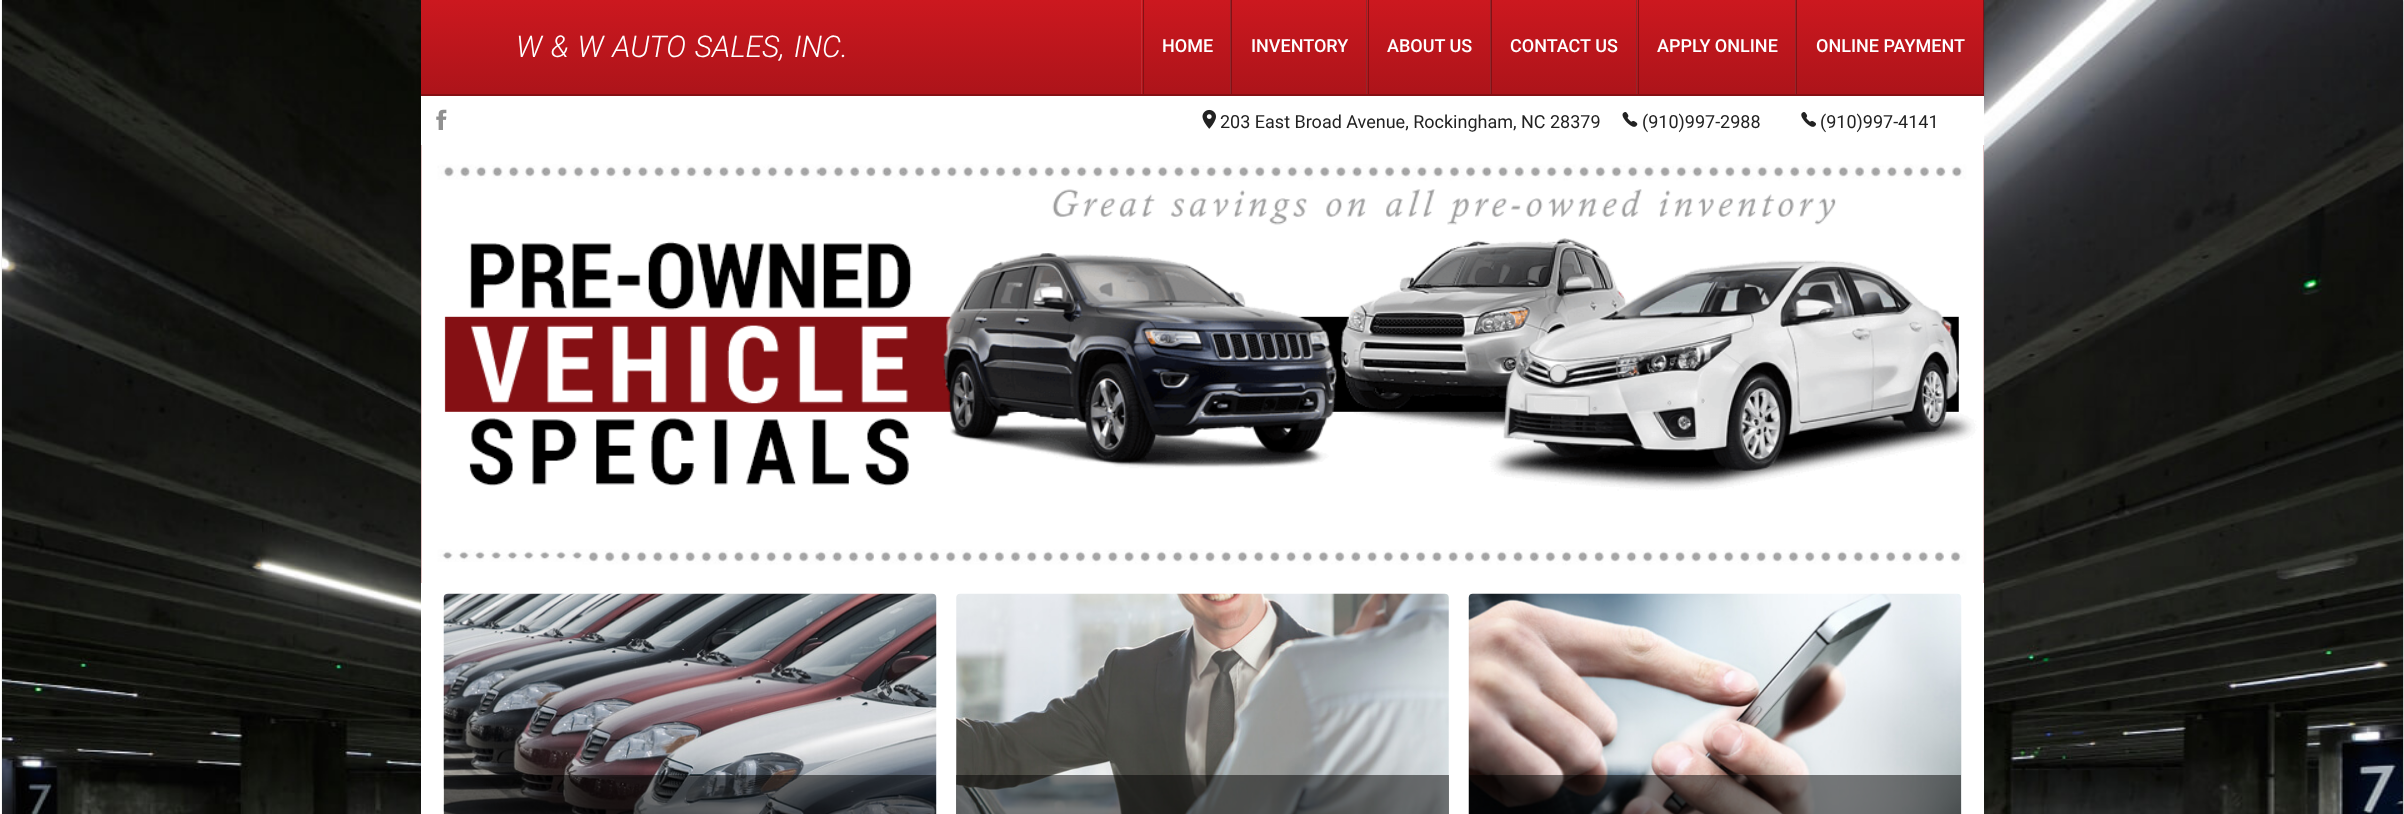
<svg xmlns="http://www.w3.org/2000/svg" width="2404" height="814">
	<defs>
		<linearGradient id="g1" gradientUnits="userSpaceOnUse" x1="1203" y1="0" x2="1203" y2="94"><stop offset="0" stop-color="#CC181F" /><stop offset="1" stop-color="#AD141A" /></linearGradient>
	</defs>
	<rect width="100%" height="100%" fill="#FFFFFF" />
	<rect x="3" y="0" width="2400" height="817" fill="#000000" fill-opacity="0.5" filter="blur(1px)" />
	<image x="2" y="0" width="2401" height="814" href="assets/img1.png" />
	<rect x="421" y="3" width="1563" height="96" fill="#000000" fill-opacity="0.2" filter="blur(1px)" />
	<rect x="421" y="0" width="1562" height="94" fill="url(#g1)" />
	<rect x="421" y="94" width="1563" height="2" fill="#851014" />
	<text x="516" y="57" word-spacing="1.5" font-family="Roboto" font-size="30" font-weight="300" font-style="italic" fill="#FFFFFF">W &amp; W AUTO SALES, INC.</text>
	<rect x="1143" y="0" width="1" height="94" fill="#851014" />
	<rect x="1141" y="0" width="1" height="94" fill="#FFFFFF" fill-opacity="0.1" />
	<text x="1162" y="52" font-family="Roboto" font-size="18" font-weight="500" fill="#FFFFFF">HOME</text>
	<rect x="1231" y="0" width="1" height="94" fill="#851014" />
	<rect x="1230" y="0" width="1" height="94" fill="#91282C" />
	<text x="1251" y="52" font-family="Roboto" font-size="18" font-weight="500" fill="#FFFFFF">INVENTORY</text>
	<rect x="1368" y="0" width="1" height="94" fill="#851014" />
	<rect x="1366" y="0" width="1" height="94" fill="#91282C" />
	<text x="1387" y="52" font-family="Roboto" font-size="18" font-weight="500" fill="#FFFFFF">ABOUT US</text>
	<rect x="1491" y="0" width="1" height="94" fill="#851014" />
	<rect x="1490" y="0" width="1" height="94" fill="#91282C" />
	<text x="1510" y="52" font-family="Roboto" font-size="18" font-weight="500" fill="#FFFFFF">CONTACT US</text>
	<rect x="1638" y="0" width="1" height="94" fill="#851014" />
	<rect x="1636" y="0" width="1" height="94" fill="#91282C" />
	<text x="1657" y="52" font-family="Roboto" font-size="18" font-weight="500" fill="#FFFFFF">APPLY ONLINE</text>
	<rect x="1983" y="0" width="1" height="94" fill="#851014" />
	<rect x="1796" y="0" width="1" height="94" fill="#851014" />
	<rect x="1795" y="0" width="1" height="94" fill="#91282C" />
	<text x="1816" y="52" font-family="Roboto" font-size="18" font-weight="500" fill="#FFFFFF">ONLINE PAYMENT</text>
	<rect x="421" y="96" width="1563" height="49" fill="#FFFFFF" />
	<image x="436" y="109" width="11" height="21" href="assets/img2.png" />
	<image x="1202" y="109" width="14" height="20" href="assets/img3.png" />
	<text x="1220" y="128" font-family="Roboto" font-size="18" fill="#222222">203 East Broad Avenue, Rockingham, NC 28379</text>
	<image x="1622" y="112" width="16" height="15" href="assets/img4.png" />
	<text x="1642" y="128" font-family="Roboto" font-size="18" fill="#222222">(910)997-2988</text>
	<image x="1801" y="112" width="15" height="15" href="assets/img5.png" />
	<text x="1820" y="128" font-family="Roboto" font-size="18" fill="#222222">(910)997-4141</text>
	<rect x="421" y="583" width="1563" height="231" fill="#FFFFFF" />
	<rect x="421" y="145" width="1563" height="438" fill="#851014" />
	<image x="421" y="145" width="1563" height="438" href="assets/img6.png" />
	<image x="443" y="593" width="494" height="221" href="assets/img7.png" />
	<rect x="444" y="775" width="492" height="39" fill="#000000" fill-opacity="0.5" />
	<image x="956" y="593" width="493" height="221" href="assets/img8.png" />
	<rect x="956" y="775" width="493" height="39" fill="#000000" fill-opacity="0.5" />
	<image x="1468" y="593" width="494" height="221" href="assets/img9.png" />
	<rect x="1469" y="775" width="492" height="39" fill="#000000" fill-opacity="0.5" />
</svg>
